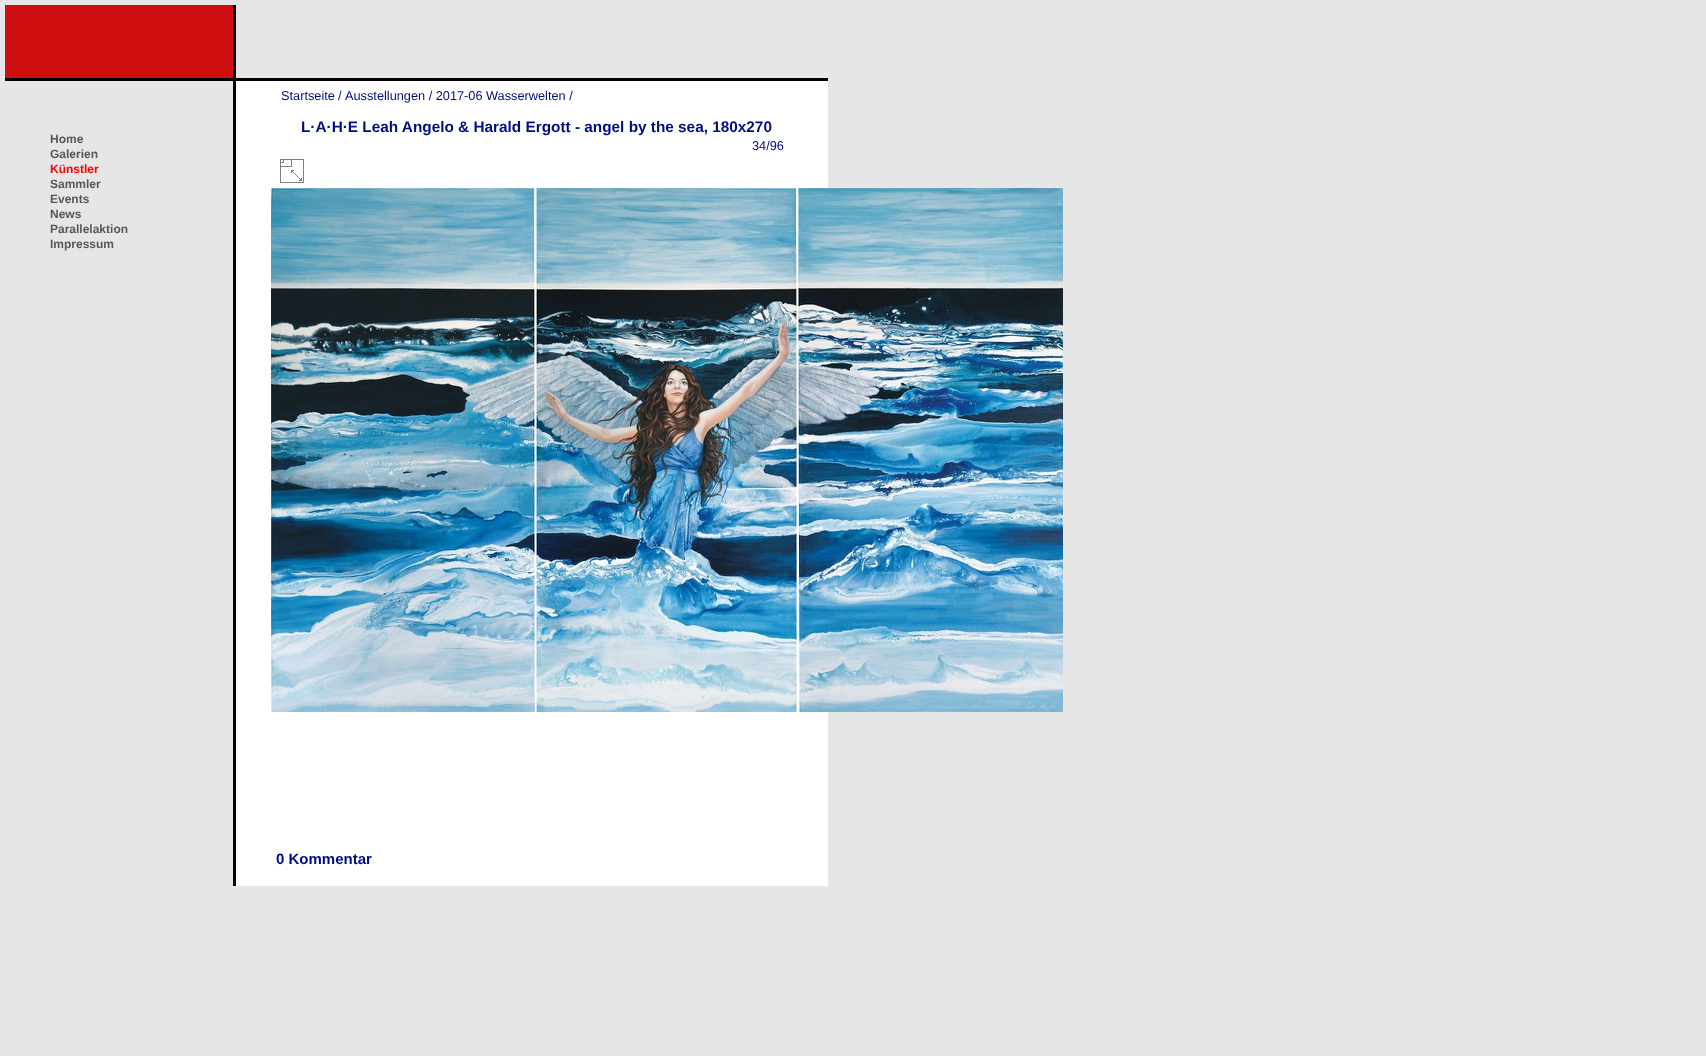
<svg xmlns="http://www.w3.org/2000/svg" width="1706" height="1056">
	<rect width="100%" height="100%" fill="#E6E6E6" />
	<rect x="5" y="5" width="228" height="73" fill="#CF0F0F" />
	<rect x="233" y="5" width="3" height="73" fill="#000000" />
	<rect x="5" y="78" width="823" height="3" fill="#000000" />
	<g font-family="Liberation Sans" font-size="12" font-weight="700" fill="#54585E">
		<text x="50" y="143">Home</text>
		<text x="50" y="158">Galerien</text>
	</g>
	<text x="50" y="173" font-family="Liberation Sans" font-size="12" font-weight="700" fill="#FF0000">Künstler</text>
	<g font-family="Liberation Sans" font-size="12" font-weight="700" fill="#54585E">
		<text x="50" y="188">Sammler</text>
		<text x="50" y="203">Events</text>
		<text x="50" y="218">News</text>
		<text x="50" y="233">Parallelaktion</text>
		<text x="50" y="248">Impressum</text>
	</g>
	<rect x="236" y="81" width="592" height="805" fill="#FFFFFF" />
	<rect x="233" y="78" width="3" height="808" fill="#000000" />
	<g font-family="Liberation Sans" font-size="12.75" fill="#000E82">
		<text x="281" y="100">Startseite</text>
		<text x="338" y="100">/</text>
		<text x="345" y="100">Ausstellungen / 2017-06 Wasserwelten /</text>
	</g>
	<text x="301" y="132" font-family="Liberation Sans" font-size="15.35" font-weight="700" fill="#000E82">L·A·H·E Leah Angelo &amp; Harald Ergott - angel by the sea, 180x270</text>
	<text x="752" y="150" font-family="Liberation Sans" font-size="12.75" fill="#000E82">34/96</text>
	<image x="280" y="159" width="24" height="24" href="assets/img1.png" />
	<image x="271" y="188" width="792" height="524" href="assets/img2.png" />
	<text x="276" y="864" font-family="Liberation Sans" font-size="15" font-weight="700" fill="#000E82">0 Kommentar</text>
</svg>
